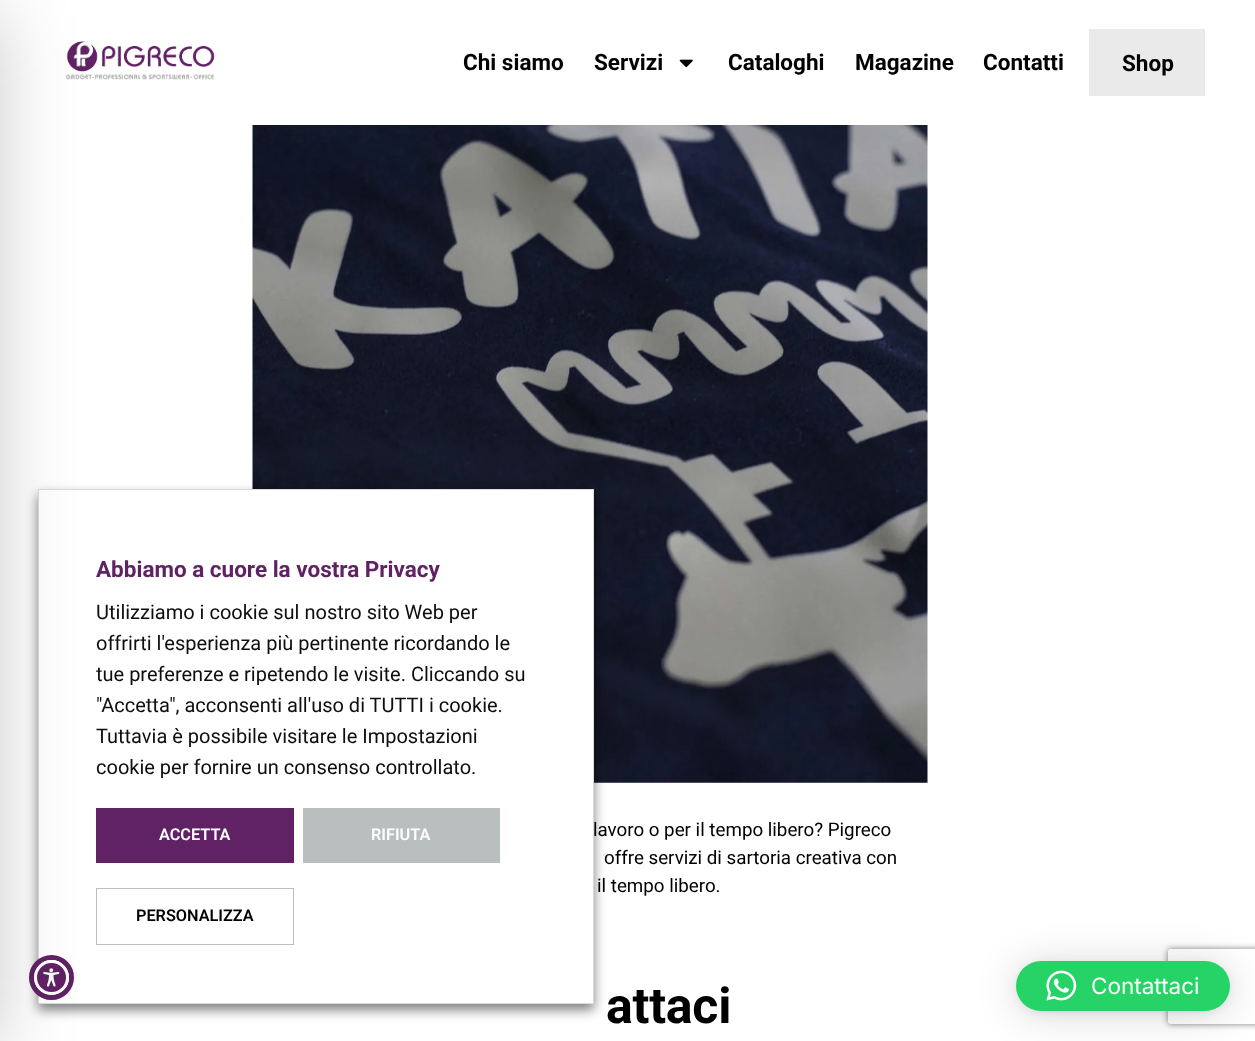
<svg xmlns="http://www.w3.org/2000/svg" width="1255" height="1041">
	<defs>
		<clipPath id="clip1"><path d="M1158 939H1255V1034H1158ZM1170.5 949H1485.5C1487 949 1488 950 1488 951.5V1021.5C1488 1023 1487 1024 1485.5 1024H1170.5C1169 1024 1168 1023 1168 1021.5V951.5C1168 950 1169 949 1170.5 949Z" clip-rule="evenodd" /></clipPath>
	</defs>
	<rect width="100%" height="100%" fill="#FFFFFF" />
	<image x="65" y="41" width="150" height="39" href="assets/img1.png" />
	<image x="252" y="125" width="676" height="658" href="assets/img4.png" />
	<rect x="38" y="495" width="556" height="515" fill="#000000" fill-opacity="0.5" filter="blur(6px)" />
	<rect x="38.5" y="489.5" width="555" height="514" fill="#FFFFFF" stroke="#DBDBDB" />
	<circle cx="51.5" cy="977.5" r="20" fill="none" stroke="#612265" stroke-width="5" />
	<circle cx="51.5" cy="977.5" r="16" fill="#612265" stroke="#FFFFFF" stroke-width="3" />
	<image x="43" y="968" width="17" height="19" href="assets/img3.png" />
	<rect x="96" y="808" width="198" height="55" fill="#612265" />
	<rect x="96.5" y="888.5" width="197" height="56" fill="none" stroke="#B9BFBE" />
	<rect x="-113" y="13" width="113" height="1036" fill="#000000" fill-opacity="0.2" filter="blur(37.5px)" />
	<g font-family="Roboto" font-size="22.5" font-weight="700" fill="#000000">
		<text x="463" y="70">Chi siamo</text>
		<text x="594" y="70">Servizi</text>
	</g>
	<image x="679" y="59" width="14" height="8" href="assets/img2.png" />
	<g font-family="Roboto" font-size="22.5" font-weight="700" fill="#000000">
		<text x="728" y="70">Cataloghi</text>
		<text x="855" y="70">Magazine</text>
		<text x="983" y="70">Contatti</text>
	</g>
	<rect x="1089" y="29" width="116" height="67" fill="#EAEAEA" />
	<text x="1122" y="71" font-family="Roboto" font-size="22.5" font-weight="700" fill="#000000">Shop</text>
	<text x="96" y="577" font-family="Roboto" font-size="22.5" font-weight="700" fill="#612265">Abbiamo a cuore la vostra Privacy</text>
	<g font-family="Roboto" font-size="20" fill="#0E0E0E">
		<text x="96" y="619">Utilizziamo i cookie sul nostro sito Web per</text>
		<text x="96" y="650">offrirti l'esperienza più pertinente ricordando le</text>
		<text x="96" y="681">tue preferenze e ripetendo le visite. Cliccando su</text>
		<text x="96" y="712">"Accetta", acconsenti all'uso di TUTTI i cookie.</text>
		<text x="96" y="743">Tuttavia è possibile visitare le Impostazioni</text>
		<text x="96" y="774">cookie per fornire un consenso controllato.</text>
	</g>
	<text x="159" y="840" font-family="Roboto" font-size="16.25" font-weight="600" fill="#FFFFFF">ACCETTA</text>
	<rect x="303" y="808" width="197" height="55" fill="#B9BFBE" />
	<text x="371" y="840" font-family="Roboto" font-size="16.25" font-weight="600" fill="#FFFFFF">RIFIUTA</text>
	<text x="136" y="921" font-family="Roboto" font-size="16.25" font-weight="600" fill="#000000">PERSONALIZZA</text>
	<g font-family="Roboto" font-size="18.75" fill="#000000">
		<text x="593" y="836">lavoro o per il tempo libero? Pigreco</text>
		<text x="604" y="864">offre servizi di sartoria creativa con</text>
		<text x="597" y="892">il tempo libero.</text>
	</g>
	<text x="606" y="1023" font-family="Roboto" font-size="50" font-weight="700" letter-spacing="-0.25" fill="#000000">attaci</text>
	<g clip-path="url(#clip1)">
		<rect x="1168" y="949" width="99" height="75" rx="2.5" fill="#808080" filter="blur(3px)" />
	</g>
	<rect x="1016" y="964" width="214" height="50" rx="25" fill="#000000" fill-opacity="0.16" filter="blur(20px)" />
	<rect x="1016" y="963" width="214" height="50" rx="25" fill="#000000" fill-opacity="0.06" filter="blur(4px)" />
	<rect x="1016" y="961" width="214" height="50" rx="25" fill="#25D366" />
	<image x="1046" y="970" width="31" height="31" href="assets/img5.png" />
	<text x="1091" y="994" font-family="Inter" font-size="22.5" fill="#FFFFFF">Contattaci</text>
</svg>
